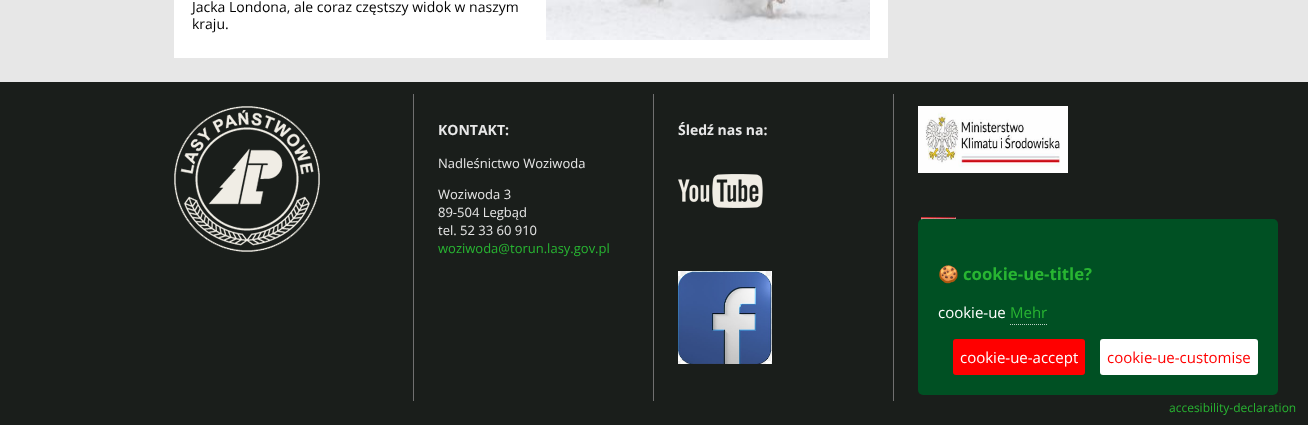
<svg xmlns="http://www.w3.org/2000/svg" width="1308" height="425">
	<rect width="100%" height="100%" fill="#E7E7E7" />
	<rect x="174" y="0" width="714" height="58" fill="#FFFFFF" />
	<g font-family="Open Sans" font-size="14" fill="#000000">
		<text x="192" y="12">Jacka Londona, ale coraz częstszy widok w naszym</text>
		<text x="192" y="29">kraju.</text>
	</g>
	<image x="546" y="0" width="324" height="40" href="assets/img1.png" />
	<rect x="0" y="82" width="1308" height="343" fill="#1A1E1B" />
	<rect x="413" y="94" width="1" height="307" fill="#707070" />
	<image x="174" y="106" width="146" height="146" href="assets/img2.png" />
	<rect x="653" y="94" width="1" height="307" fill="#707070" />
	<text x="438" y="135" font-family="Open Sans" font-size="14" font-weight="700" fill="#E7E7E7">KONTAKT:</text>
	<g font-family="Open Sans" font-size="13" fill="#E7E7E7">
		<text x="438" y="168">Nadleśnictwo Woziwoda</text>
		<text x="438" y="199">Woziwoda 3</text>
		<text x="438" y="217">89-504 Legbąd</text>
		<text x="438" y="235">tel. 52 33 60 910</text>
	</g>
	<text x="438" y="253" font-family="Open Sans" font-size="13" fill="#28B532">woziwoda@torun.lasy.gov.pl</text>
	<rect x="893" y="94" width="1" height="307" fill="#707070" />
	<text x="678" y="135" font-family="Open Sans" font-size="14" font-weight="700" fill="#E7E7E7">Śledź nas na:</text>
	<image x="678" y="174" width="85" height="34" href="assets/img3.png" />
	<image x="678" y="271" width="94" height="93" href="assets/img4.png" />
	<image x="918" y="106" width="150" height="67" href="assets/img5.png" />
	<image x="921" y="217" width="35" height="3" href="assets/img6.png" />
	<text x="1169" y="412" font-family="Open Sans" font-size="12" fill="#28B532">accesibility-declaration</text>
	<rect x="918" y="219" width="360" height="176" rx="5" fill="#005023" />
	<text x="938" y="280" font-family="Noto Color Emoji" font-size="16.75" font-weight="700" fill="#28B532">🍪</text>
	<text x="963" y="280" font-family="Open Sans" font-size="16.75" font-weight="700" fill="#28B532">cookie-ue-title?</text>
	<text x="938" y="318" font-family="Open Sans" font-size="15" fill="#FFFFFF">cookie-ue</text>
	<text x="1010" y="318" font-family="Open Sans" font-size="15" fill="#28B532">Mehr</text>
	<path d="M1010 324.5H1047" fill="none" stroke="#BFD3C8" stroke-dasharray="1 1" />
	<rect x="953" y="339" width="132" height="36" rx="3" fill="#FF0000" />
	<text x="960" y="363" font-family="Open Sans" font-size="15" fill="#FFFFFF">cookie-ue-accept</text>
	<rect x="1100" y="339" width="158" height="36" rx="3" fill="#FFFFFF" />
	<text x="1107" y="363" font-family="Open Sans" font-size="15" fill="#FF0000">cookie-ue-customise</text>
</svg>
